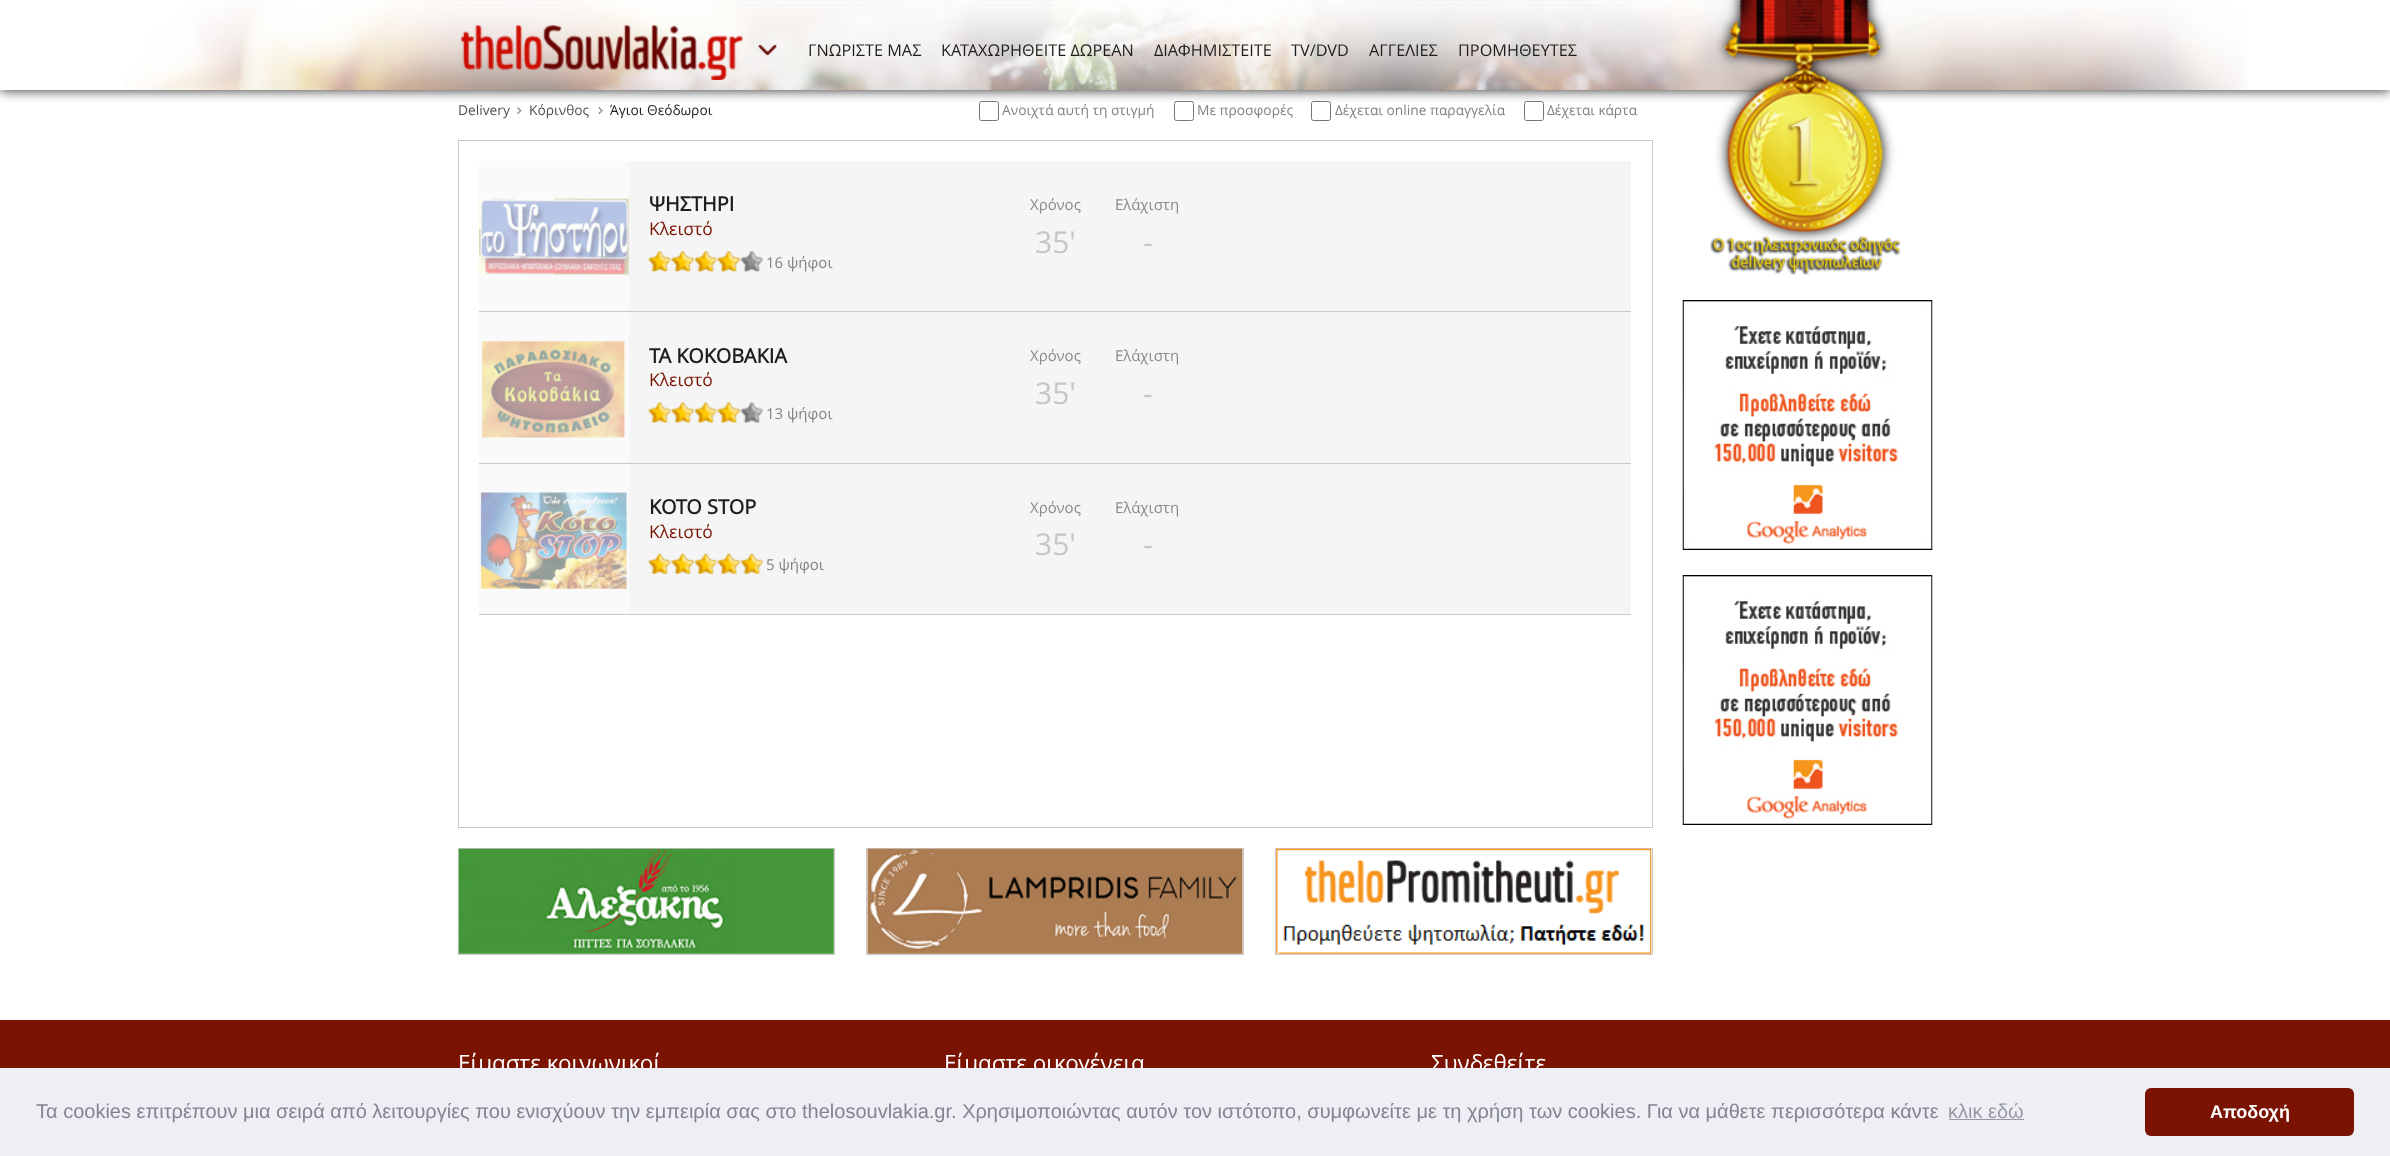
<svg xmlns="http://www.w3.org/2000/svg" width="2390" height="1156">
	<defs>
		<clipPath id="clip1"><rect x="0" y="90" width="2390" height="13" /></clipPath>
	</defs>
	<rect width="100%" height="100%" fill="#FFFFFF" />
	<g clip-path="url(#clip1)">
		<rect x="0" y="1" width="2390" height="90" fill="#000000" fill-opacity="0.75" filter="blur(6px)" />
	</g>
	<image x="124" y="0" width="2123" height="90" href="assets/img1.png" />
	<image x="461" y="25" width="282" height="55" href="assets/img2.png" />
	<image x="758" y="44" width="19" height="12" href="assets/img3.png" />
	<g font-family="Open Sans" font-size="16.25" fill="#1E1E1E">
		<text x="808" y="56">ΓΝΩΡΙΣΤΕ ΜΑΣ</text>
		<text x="941" y="56">ΚΑΤΑΧΩΡΗΘΕΙΤΕ ΔΩΡΕΑΝ</text>
		<text x="1154" y="56">ΔΙΑΦΗΜΙΣΤΕΙΤΕ</text>
		<text x="1291" y="56">TV/DVD</text>
		<text x="1369" y="56">ΑΓΓΕΛΙΕΣ</text>
		<text x="1458" y="56">ΠΡΟΜΗΘΕΥΤΕΣ</text>
	</g>
	<image x="1710" y="0" width="191" height="275" href="assets/img4.png" />
	<image x="1682" y="300" width="251" height="250" href="assets/img5.png" />
	<image x="1682" y="575" width="251" height="250" href="assets/img6.png" />
	<image x="517" y="107" width="5" height="7" href="assets/img7.png" />
	<text x="458" y="115" font-family="Open Sans" font-size="13.75" fill="#505050">Delivery</text>
	<image x="598" y="107" width="5" height="7" href="assets/img8.png" />
	<text x="529" y="115" font-family="Open Sans" font-size="13.75" fill="#505050">Κόρινθος</text>
	<text x="610" y="115" font-family="Open Sans" font-size="13.75" fill="#1E1E1E">Άγιοι Θεόδωροι</text>
	<rect x="979.5" y="101.5" width="19" height="19" rx="2" fill="#FFFFFF" stroke="#767676" />
	<text x="1002" y="115" font-family="Open Sans" font-size="13.75" fill="#828282">Ανοιχτά αυτή τη στιγμή</text>
	<rect x="1174.5" y="101.5" width="19" height="19" rx="2" fill="#FFFFFF" stroke="#767676" />
	<text x="1197" y="115" font-family="Open Sans" font-size="13.75" fill="#828282">Με προσφορές</text>
	<rect x="1311.5" y="101.5" width="19" height="19" rx="2" fill="#FFFFFF" stroke="#767676" />
	<text x="1335" y="115" font-family="Open Sans" font-size="13.75" fill="#828282">Δέχεται online παραγγελία</text>
	<rect x="1524.5" y="101.5" width="19" height="19" rx="2" fill="#FFFFFF" stroke="#767676" />
	<text x="1547" y="115" font-family="Open Sans" font-size="13.75" fill="#828282">Δέχεται κάρτα</text>
	<rect x="458.5" y="140.5" width="1194" height="687" fill="none" stroke="#C8C8C8" />
	<rect x="629" y="161" width="1002" height="150" fill="#F5F5F5" />
	<rect x="479" y="161" width="150" height="150" fill="#FAFAFA" />
	<image x="478" y="198" width="151" height="77" href="assets/img9.png" />
	<text x="649" y="211" font-family="Open Sans" font-size="20" font-weight="700" fill="#1E1E1E">ΨΗΣΤΗΡΙ</text>
	<text x="649" y="235" font-family="Open Sans" font-size="17.5" fill="#7A1302">Κλειστό</text>
	<image x="648" y="251" width="115" height="21" href="assets/img10.png" />
	<text x="766" y="268" font-family="Open Sans" font-size="15" fill="#828282">16 ψήφοι</text>
	<text x="1030" y="210" font-family="Open Sans" font-size="15" fill="#8A8A8A">Χρόνος</text>
	<text x="1035" y="253" font-family="Open Sans" font-size="30" fill="#C6C6C6">35'</text>
	<text x="1115" y="210" font-family="Open Sans" font-size="15" fill="#8A8A8A">Ελάχιστη</text>
	<text x="1143" y="253" font-family="Open Sans" font-size="30" fill="#C6C6C6">-</text>
	<rect x="479" y="312" width="1152" height="151" fill="#F5F5F5" />
	<rect x="479" y="311" width="1152" height="1" fill="#C8C8C8" />
	<rect x="479" y="313" width="150" height="150" fill="#FAFAFA" />
	<image x="482" y="341" width="143" height="97" href="assets/img11.png" />
	<text x="649" y="363" font-family="Open Sans" font-size="20" font-weight="700" fill="#1E1E1E">ΤΑ ΚΟΚΟΒΑΚΙΑ</text>
	<text x="649" y="386" font-family="Open Sans" font-size="17.5" fill="#7A1302">Κλειστό</text>
	<image x="648" y="402" width="115" height="21" href="assets/img12.png" />
	<text x="766" y="419" font-family="Open Sans" font-size="15" fill="#828282">13 ψήφοι</text>
	<text x="1030" y="361" font-family="Open Sans" font-size="15" fill="#8A8A8A">Χρόνος</text>
	<text x="1035" y="404" font-family="Open Sans" font-size="30" fill="#C6C6C6">35'</text>
	<text x="1115" y="361" font-family="Open Sans" font-size="15" fill="#8A8A8A">Ελάχιστη</text>
	<text x="1143" y="404" font-family="Open Sans" font-size="30" fill="#C6C6C6">-</text>
	<rect x="629" y="464" width="1002" height="150" fill="#F5F5F5" />
	<rect x="479" y="463" width="1152" height="1" fill="#C8C8C8" />
	<rect x="479" y="464" width="150" height="150" fill="#FAFAFA" />
	<image x="480" y="492" width="147" height="97" href="assets/img13.png" />
	<text x="649" y="514" font-family="Open Sans" font-size="20" font-weight="700" fill="#1E1E1E">ΚΟΤΟ STOP</text>
	<text x="649" y="538" font-family="Open Sans" font-size="17.5" fill="#7A1302">Κλειστό</text>
	<image x="648" y="553" width="115" height="21" href="assets/img14.png" />
	<text x="766" y="570" font-family="Open Sans" font-size="15" fill="#828282">5 ψήφοι</text>
	<text x="1030" y="513" font-family="Open Sans" font-size="15" fill="#8A8A8A">Χρόνος</text>
	<text x="1035" y="555" font-family="Open Sans" font-size="30" fill="#C6C6C6">35'</text>
	<text x="1115" y="513" font-family="Open Sans" font-size="15" fill="#8A8A8A">Ελάχιστη</text>
	<text x="1143" y="555" font-family="Open Sans" font-size="30" fill="#C6C6C6">-</text>
	<rect x="479" y="614" width="1152" height="1" fill="#C8C8C8" />
	<rect x="458.5" y="848.5" width="376" height="106" fill="none" stroke="#C8C8C8" />
	<image x="458" y="848" width="376" height="106" href="assets/img15.png" />
	<rect x="866.5" y="848.5" width="377" height="106" fill="none" stroke="#C8C8C8" />
	<image x="867" y="848" width="376" height="106" href="assets/img16.png" />
	<rect x="1275.5" y="848.5" width="377" height="106" fill="none" stroke="#C8C8C8" />
	<image x="1276" y="848" width="376" height="106" href="assets/img17.png" />
	<rect x="0" y="1020" width="2390" height="48" fill="#7A1302" />
	<g font-family="Open Sans" font-size="22.5" fill="#FFFFFF">
		<text x="458" y="1071">Είμαστε κοινωνικοί</text>
		<text x="944" y="1071">Είμαστε οικογένεια</text>
		<text x="1431" y="1071">Συνδεθείτε</text>
	</g>
	<rect x="0" y="1068" width="2390" height="88" fill="#EDEFF5" />
	<text x="36" y="1118" font-family="Liberation Sans" font-size="20" fill="#838391">Τα cookies επιτρέπουν μια σειρά από λειτουργίες που ενισχύουν την εμπειρία σας στο thelosouvlakia.gr. Χρησιμοποιώντας αυτόν τον ιστότοπο, συμφωνείτε με τη χρήση των cookies. Για να μάθετε περισσότερα κάντε</text>
	<text x="1948" y="1118" font-family="Liberation Sans" font-size="20" fill="#9899A5">κλικ εδώ</text>
	<rect x="1949" y="1119" width="75" height="1" fill="#9899A5" />
	<rect x="2145" y="1088" width="209" height="48" rx="6" fill="#7A1302" />
	<text x="2210" y="1118" font-family="Liberation Sans" font-size="18" font-weight="700" fill="#FFFFFF">Αποδοχή</text>
</svg>
